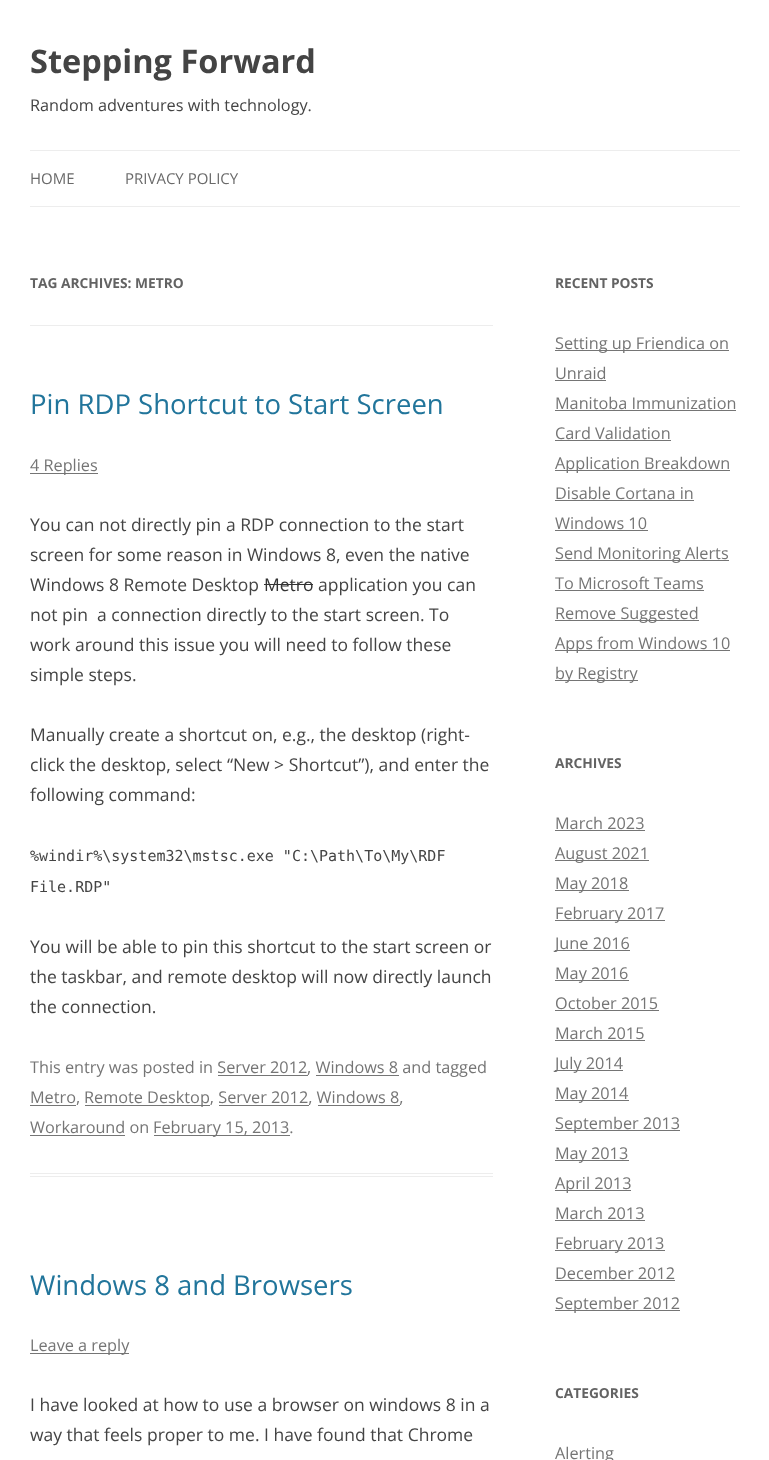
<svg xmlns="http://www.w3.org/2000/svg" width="769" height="1460">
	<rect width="100%" height="100%" fill="#FFFFFF" />
	<text x="30" y="73" font-family="Open Sans" font-size="32.5" font-weight="700" fill="#444444">Stepping Forward</text>
	<text x="30" y="111" font-family="Open Sans" font-size="16.25" fill="#444444">Random adventures with technology.</text>
	<rect x="30" y="150" width="710" height="1" fill="#EDEDED" />
	<rect x="30" y="206" width="710" height="1" fill="#EDEDED" />
	<g font-family="Open Sans" font-size="15" fill="#6A6A6A">
		<text x="30" y="184">HOME</text>
		<text x="125" y="184">PRIVACY POLICY</text>
	</g>
	<rect x="30" y="325" width="463" height="1" fill="#EDEDED" />
	<text x="30" y="288" font-family="Open Sans" font-size="13.75" font-weight="700" fill="#636363">TAG ARCHIVES: METRO</text>
	<rect x="30" y="1173" width="463" height="1" fill="#EDEDED" />
	<rect x="30" y="1176" width="463" height="1" fill="#EDEDED" />
	<text x="30" y="414" font-family="Open Sans" font-size="27.5" fill="#21759B">Pin RDP Shortcut to Start Screen</text>
	<rect x="30" y="473" width="68" height="1" fill="#757575" />
	<text x="30" y="471" font-family="Open Sans" font-size="16.25" fill="#757575">4 Replies</text>
	<g font-family="Open Sans" font-size="17.5" fill="#444444">
		<text x="30" y="531">You can not directly pin a RDP connection to the start</text>
		<text x="30" y="561">screen for some reason in Windows 8, even the native</text>
		<text x="30" y="591">Windows 8 Remote Desktop</text>
	</g>
	<text x="264" y="591" font-family="Open Sans" font-size="17.5" fill="#333333">Metro</text>
	<rect x="264" y="584" width="49" height="1" fill="#333333" />
	<g font-family="Open Sans" font-size="17.5" fill="#444444">
		<text x="318" y="591">application you can</text>
		<text x="30" y="621" xml:space="preserve">not pin  a connection directly to the start screen. To</text>
		<text x="30" y="651">work around this issue you will need to follow these</text>
		<text x="30" y="681">simple steps.</text>
		<text x="30" y="741">Manually create a shortcut on, e.g., the desktop (right-</text>
		<text x="30" y="771">click the desktop, select “New &gt; Shortcut”), and enter the</text>
		<text x="30" y="801">following command:</text>
	</g>
	<g font-family="DejaVu Sans Mono" font-size="15" fill="#444444">
		<text x="30" y="861">%windir%\system32\mstsc.exe "C:\Path\To\My\RDF</text>
		<text x="30" y="892">File.RDP"</text>
	</g>
	<g font-family="Open Sans" font-size="17.5" fill="#444444">
		<text x="30" y="953">You will be able to pin this shortcut to the start screen or</text>
		<text x="30" y="983">the taskbar, and remote desktop will now directly launch</text>
		<text x="30" y="1013">the connection.</text>
	</g>
	<text x="30" y="1073" font-family="Open Sans" font-size="16.25" fill="#757575">This entry was posted in Server 2012</text>
	<rect x="218" y="1075" width="90" height="1" fill="#757575" />
	<text x="307" y="1073" font-family="Open Sans" font-size="16.25" fill="#757575">, Windows 8 and tagged</text>
	<rect x="316" y="1075" width="83" height="1" fill="#757575" />
	<rect x="30" y="1105" width="46" height="1" fill="#757575" />
	<text x="30" y="1103" font-family="Open Sans" font-size="16.25" fill="#757575">Metro,</text>
	<rect x="85" y="1105" width="125" height="1" fill="#757575" />
	<text x="84" y="1103" font-family="Open Sans" font-size="16.25" fill="#757575">Remote Desktop, Server 2012, Windows 8,</text>
	<rect x="219" y="1105" width="90" height="1" fill="#757575" />
	<rect x="318" y="1105" width="82" height="1" fill="#757575" />
	<text x="30" y="1133" font-family="Open Sans" font-size="16.25" fill="#757575">Workaround on</text>
	<rect x="30" y="1135" width="95" height="1" fill="#757575" />
	<rect x="154" y="1135" width="136" height="1" fill="#757575" />
	<text x="153" y="1133" font-family="Open Sans" font-size="16.25" fill="#757575">February 15, 2013.</text>
	<text x="30" y="1295" font-family="Open Sans" font-size="27.5" fill="#21759B">Windows 8 and Browsers</text>
	<rect x="30" y="1353" width="99" height="1" fill="#757575" />
	<text x="30" y="1351" font-family="Open Sans" font-size="16.25" fill="#757575">Leave a reply</text>
	<g font-family="Open Sans" font-size="17.5" fill="#444444">
		<text x="30" y="1411">I have looked at how to use a browser on windows 8 in a</text>
		<text x="30" y="1441">way that feels proper to me. I have found that Chrome</text>
	</g>
	<text x="555" y="288" font-family="Open Sans" font-size="13.75" font-weight="700" fill="#636363">RECENT POSTS</text>
	<rect x="555" y="350" width="174" height="1" fill="#757575" />
	<g font-family="Open Sans" font-size="16.25" fill="#757575">
		<text x="555" y="349">Setting up Friendica on</text>
		<text x="555" y="379">Unraid</text>
	</g>
	<rect x="555" y="380" width="51" height="1" fill="#757575" />
	<text x="555" y="409" font-family="Open Sans" font-size="16.25" fill="#757575">Manitoba Immunization</text>
	<rect x="555" y="410" width="181" height="1" fill="#757575" />
	<text x="555" y="439" font-family="Open Sans" font-size="16.25" fill="#757575">Card Validation</text>
	<rect x="555" y="440" width="116" height="1" fill="#757575" />
	<rect x="555" y="470" width="175" height="1" fill="#757575" />
	<g font-family="Open Sans" font-size="16.25" fill="#757575">
		<text x="555" y="469">Application Breakdown</text>
		<text x="555" y="499">Disable Cortana in</text>
	</g>
	<rect x="555" y="500" width="139" height="1" fill="#757575" />
	<text x="555" y="529" font-family="Open Sans" font-size="16.25" fill="#757575">Windows 10</text>
	<rect x="555" y="530" width="93" height="1" fill="#757575" />
	<rect x="555" y="560" width="174" height="1" fill="#757575" />
	<g font-family="Open Sans" font-size="16.25" fill="#757575">
		<text x="555" y="559">Send Monitoring Alerts</text>
		<text x="555" y="589">To Microsoft Teams</text>
	</g>
	<rect x="555" y="590" width="149" height="1" fill="#757575" />
	<rect x="555" y="620" width="144" height="1" fill="#757575" />
	<text x="555" y="619" font-family="Open Sans" font-size="16.25" fill="#757575">Remove Suggested</text>
	<rect x="555" y="650" width="175" height="1" fill="#757575" />
	<text x="555" y="649" font-family="Open Sans" font-size="16.25" fill="#757575">Apps from Windows 10</text>
	<rect x="555" y="680" width="83" height="1" fill="#757575" />
	<text x="555" y="679" font-family="Open Sans" font-size="16.25" fill="#757575">by Registry</text>
	<text x="555" y="768" font-family="Open Sans" font-size="13.75" font-weight="700" fill="#636363">ARCHIVES</text>
	<text x="555" y="829" font-family="Open Sans" font-size="16.25" fill="#757575">March 2023</text>
	<rect x="555" y="830" width="90" height="1" fill="#757575" />
	<rect x="555" y="860" width="94" height="1" fill="#757575" />
	<text x="555" y="859" font-family="Open Sans" font-size="16.25" fill="#757575">August 2021</text>
	<rect x="555" y="890" width="74" height="1" fill="#757575" />
	<text x="555" y="889" font-family="Open Sans" font-size="16.25" fill="#757575">May 2018</text>
	<rect x="555" y="920" width="110" height="1" fill="#757575" />
	<text x="555" y="919" font-family="Open Sans" font-size="16.25" fill="#757575">February 2017</text>
	<rect x="555" y="950" width="75" height="1" fill="#757575" />
	<text x="555" y="949" font-family="Open Sans" font-size="16.25" fill="#757575">June 2016</text>
	<rect x="555" y="980" width="74" height="1" fill="#757575" />
	<g font-family="Open Sans" font-size="16.25" fill="#757575">
		<text x="555" y="979">May 2016</text>
		<text x="555" y="1009">October 2015</text>
	</g>
	<rect x="555" y="1010" width="104" height="1" fill="#757575" />
	<text x="555" y="1039" font-family="Open Sans" font-size="16.25" fill="#757575">March 2015</text>
	<rect x="555" y="1040" width="90" height="1" fill="#757575" />
	<rect x="555" y="1070" width="68" height="1" fill="#757575" />
	<text x="555" y="1069" font-family="Open Sans" font-size="16.25" fill="#757575">July 2014</text>
	<rect x="555" y="1100" width="74" height="1" fill="#757575" />
	<text x="555" y="1099" font-family="Open Sans" font-size="16.25" fill="#757575">May 2014</text>
	<rect x="555" y="1130" width="125" height="1" fill="#757575" />
	<text x="555" y="1129" font-family="Open Sans" font-size="16.25" fill="#757575">September 2013</text>
	<rect x="555" y="1160" width="74" height="1" fill="#757575" />
	<text x="555" y="1159" font-family="Open Sans" font-size="16.25" fill="#757575">May 2013</text>
	<rect x="555" y="1190" width="76" height="1" fill="#757575" />
	<g font-family="Open Sans" font-size="16.25" fill="#757575">
		<text x="555" y="1189">April 2013</text>
		<text x="555" y="1219">March 2013</text>
	</g>
	<rect x="555" y="1220" width="90" height="1" fill="#757575" />
	<rect x="555" y="1250" width="110" height="1" fill="#757575" />
	<g font-family="Open Sans" font-size="16.25" fill="#757575">
		<text x="555" y="1249">February 2013</text>
		<text x="555" y="1279">December 2012</text>
	</g>
	<rect x="555" y="1280" width="120" height="1" fill="#757575" />
	<rect x="555" y="1310" width="125" height="1" fill="#757575" />
	<text x="555" y="1309" font-family="Open Sans" font-size="16.25" fill="#757575">September 2012</text>
	<text x="555" y="1398" font-family="Open Sans" font-size="13.75" font-weight="700" fill="#636363">CATEGORIES</text>
	<text x="555" y="1459" font-family="Open Sans" font-size="16.25" fill="#757575">Alerting</text>
</svg>
